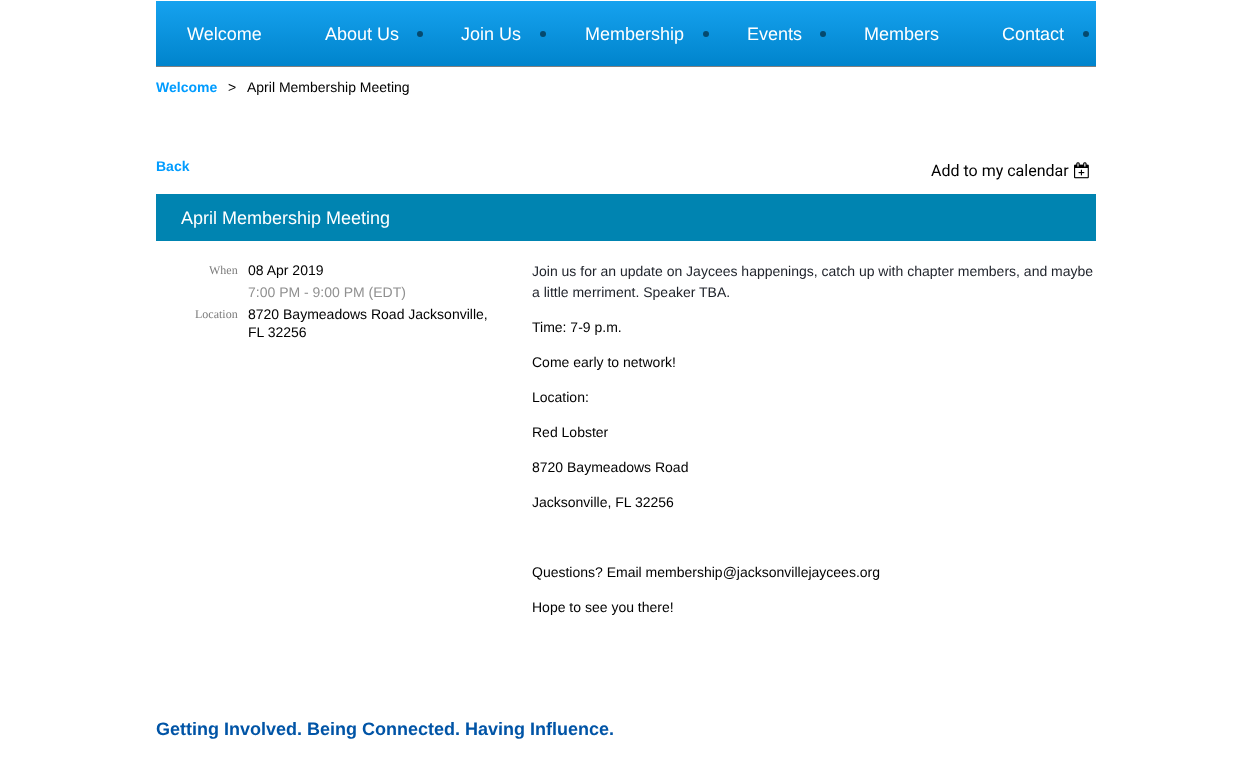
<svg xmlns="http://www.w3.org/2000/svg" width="1251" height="758">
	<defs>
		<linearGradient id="g1" gradientUnits="userSpaceOnUse" x1="225" y1="1" x2="225" y2="66"><stop offset="0" stop-color="#16A2EF" /><stop offset="1" stop-color="#0084CC" /></linearGradient>
		<linearGradient id="g2" gradientUnits="userSpaceOnUse" x1="362" y1="1" x2="362" y2="66"><stop offset="0" stop-color="#16A2EF" /><stop offset="1" stop-color="#0084CC" /></linearGradient>
		<linearGradient id="g3" gradientUnits="userSpaceOnUse" x1="492" y1="1" x2="492" y2="66"><stop offset="0" stop-color="#16A2EF" /><stop offset="1" stop-color="#0084CC" /></linearGradient>
		<linearGradient id="g4" gradientUnits="userSpaceOnUse" x1="635" y1="1" x2="635" y2="66"><stop offset="0" stop-color="#16A2EF" /><stop offset="1" stop-color="#0084CC" /></linearGradient>
		<linearGradient id="g5" gradientUnits="userSpaceOnUse" x1="775" y1="1" x2="775" y2="66"><stop offset="0" stop-color="#16A2EF" /><stop offset="1" stop-color="#0084CC" /></linearGradient>
		<linearGradient id="g6" gradientUnits="userSpaceOnUse" x1="902" y1="1" x2="902" y2="66"><stop offset="0" stop-color="#16A2EF" /><stop offset="1" stop-color="#0084CC" /></linearGradient>
		<linearGradient id="g7" gradientUnits="userSpaceOnUse" x1="1034" y1="1" x2="1034" y2="66"><stop offset="0" stop-color="#16A2EF" /><stop offset="1" stop-color="#0084CC" /></linearGradient>
	</defs>
	<rect width="100%" height="100%" fill="#FFFFFF" />
	<rect x="156" y="2" width="940" height="65" fill="#000000" fill-opacity="0.5" filter="blur(0.5px)" />
	<rect x="156" y="1" width="137" height="65" fill="url(#g1)" />
	<text x="187" y="40" font-family="Liberation Sans" font-size="18" fill="#FFFFFF">Welcome</text>
	<rect x="293" y="1" width="137" height="65" fill="url(#g2)" />
	<text x="325" y="40" font-family="Liberation Sans" font-size="18" fill="#FFFFFF">About Us</text>
	<circle cx="420" cy="34" r="3" fill="#000000" fill-opacity="0.5" />
	<rect x="430" y="1" width="123" height="65" fill="url(#g3)" />
	<text x="461" y="40" font-family="Liberation Sans" font-size="18" fill="#FFFFFF">Join Us</text>
	<circle cx="543" cy="34" r="3" fill="#000000" fill-opacity="0.5" />
	<rect x="553" y="1" width="163" height="65" fill="url(#g4)" />
	<text x="585" y="40" font-family="Liberation Sans" font-size="18" fill="#FFFFFF">Membership</text>
	<circle cx="706" cy="34" r="3" fill="#000000" fill-opacity="0.5" />
	<rect x="716" y="1" width="117" height="65" fill="url(#g5)" />
	<text x="747" y="40" font-family="Liberation Sans" font-size="18" fill="#FFFFFF">Events</text>
	<circle cx="823" cy="34" r="3" fill="#000000" fill-opacity="0.5" />
	<rect x="833" y="1" width="138" height="65" fill="url(#g6)" />
	<text x="864" y="40" font-family="Liberation Sans" font-size="18" fill="#FFFFFF">Members</text>
	<rect x="971" y="1" width="125" height="65" fill="url(#g7)" />
	<text x="1002" y="40" font-family="Liberation Sans" font-size="18" fill="#FFFFFF">Contact</text>
	<circle cx="1086" cy="34" r="3" fill="#000000" fill-opacity="0.5" />
	<text x="156" y="92" font-family="Liberation Sans" font-size="14" font-weight="700" fill="#009CFF">Welcome</text>
	<g font-family="Liberation Sans" font-size="14" fill="#000000">
		<text x="228" y="92">&gt;</text>
		<text x="247" y="92">April Membership Meeting</text>
	</g>
	<text x="156" y="171" font-family="Liberation Sans" font-size="14" font-weight="700" fill="#009CFF">Back</text>
	<text x="931" y="176" font-family="Roboto" font-size="16" fill="#000000">Add to my calendar</text>
	<image x="1074" y="162" width="15" height="17" href="assets/img1.png" />
	<rect x="156" y="194" width="940" height="47" fill="#0084B1" />
	<text x="181" y="224" font-family="Liberation Sans" font-size="18" fill="#FFFFFF">April Membership Meeting</text>
	<text x="209" y="274" font-family="Liberation Serif" font-size="12" fill="#7C7C7C">When</text>
	<text x="248" y="275" font-family="Liberation Sans" font-size="14" fill="#000000">08 Apr 2019</text>
	<text x="248" y="297" font-family="Liberation Sans" font-size="14" fill="#909090">7:00 PM - 9:00 PM (EDT)</text>
	<text x="195" y="318" font-family="Liberation Serif" font-size="12" fill="#7C7C7C">Location</text>
	<g font-family="Liberation Sans" font-size="14" fill="#000000">
		<text x="248" y="319">8720 Baymeadows Road Jacksonville,</text>
		<text x="248" y="337">FL 32256</text>
	</g>
	<g font-family="Liberation Sans" font-size="14" fill="#1D2129">
		<text x="532" y="276">Join us for an update on Jaycees happenings, catch up with chapter members, and maybe</text>
		<text x="532" y="297">a little merriment. Speaker TBA.</text>
	</g>
	<g font-family="Liberation Sans" font-size="14" fill="#000000">
		<text x="532" y="332">Time: 7-9 p.m.</text>
		<text x="532" y="367">Come early to network!</text>
		<text x="532" y="402">Location:</text>
		<text x="532" y="437">Red Lobster</text>
		<text x="532" y="472">8720 Baymeadows Road</text>
		<text x="532" y="507">Jacksonville, FL 32256</text>
		<text x="532" y="577">Questions? Email membership@jacksonvillejaycees.org</text>
		<text x="532" y="612">Hope to see you there!</text>
	</g>
	<text x="156" y="735" font-family="Liberation Sans" font-size="18" font-weight="700" fill="#0054A6">Getting Involved. Being Connected. Having Influence.</text>
</svg>
